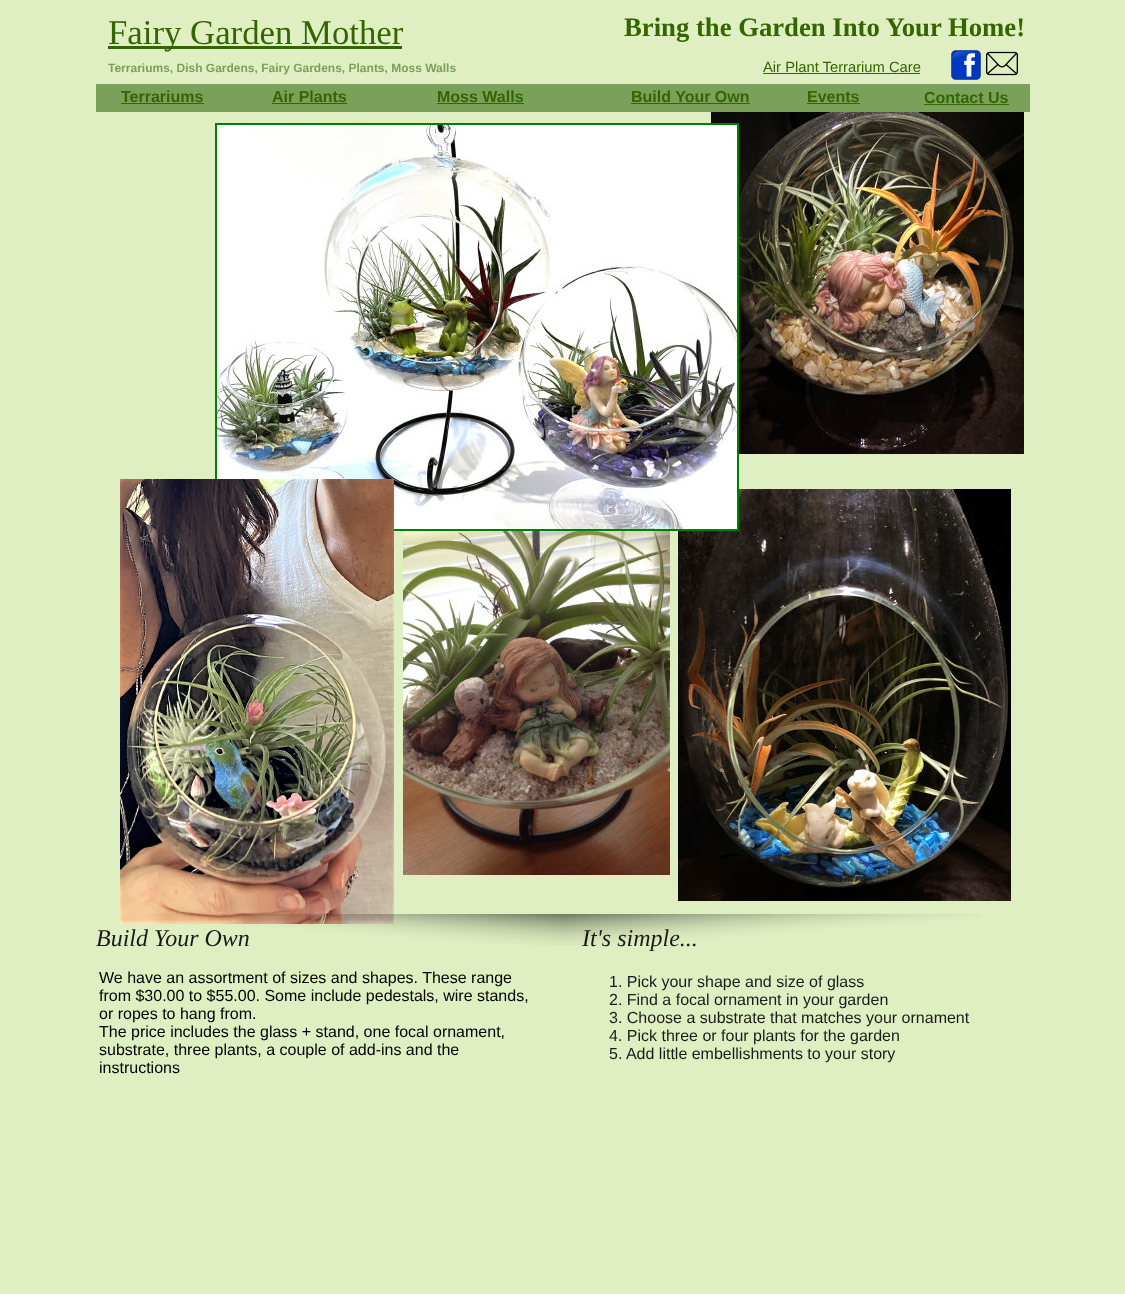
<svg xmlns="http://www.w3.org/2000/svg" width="1125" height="1294">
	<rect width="100%" height="100%" fill="#E0EFC2" />
	<rect x="108" y="46" width="294" height="3" fill="#336600" />
	<text x="108" y="44" font-family="Liberation Serif" font-size="34.75" fill="#336600">Fairy Garden Mother</text>
	<text x="624" y="36" font-family="Liberation Serif" font-size="26.7" font-weight="700" fill="#336600">Bring the Garden Into Your Home!</text>
	<text x="108" y="72" font-family="Liberation Sans" font-size="12" font-weight="700" fill="#7AA05A">Terrariums, Dish Gardens, Fairy Gardens, Plants, Moss Walls</text>
	<text x="763" y="72" font-family="Liberation Sans" font-size="14.75" fill="#336600">Air Plant Terrarium Care</text>
	<rect x="763" y="73" width="157" height="1" fill="#336600" />
	<image x="951" y="50" width="30" height="30" href="assets/img1.png" />
	<image x="986" y="51" width="32" height="25" href="assets/img2.png" />
	<rect x="96" y="84" width="934" height="28" fill="#7AA05A" />
	<text x="121" y="102" font-family="Liberation Sans" font-size="16" font-weight="700" fill="#336600">Terrariums</text>
	<rect x="121" y="103" width="83" height="1" fill="#336600" />
	<text x="272" y="102" font-family="Liberation Sans" font-size="16" font-weight="700" fill="#336600">Air Plants</text>
	<rect x="272" y="103" width="75" height="1" fill="#336600" />
	<text x="437" y="102" font-family="Liberation Sans" font-size="16" font-weight="700" fill="#336600">Moss Walls</text>
	<rect x="437" y="103" width="87" height="1" fill="#336600" />
	<text x="631" y="102" font-family="Liberation Sans" font-size="16" font-weight="700" fill="#336600">Build Your Own</text>
	<rect x="631" y="103" width="119" height="1" fill="#336600" />
	<text x="807" y="102" font-family="Liberation Sans" font-size="16" font-weight="700" fill="#336600">Events</text>
	<rect x="807" y="103" width="53" height="1" fill="#336600" />
	<text x="924" y="103" font-family="Liberation Sans" font-size="16" font-weight="700" fill="#336600">Contact Us</text>
	<rect x="924" y="104" width="85" height="1" fill="#336600" />
	<image x="711" y="112" width="313" height="342" href="assets/img4.png" />
	<image x="678" y="489" width="333" height="412" href="assets/img7.png" />
	<image x="217" y="125" width="520" height="404" href="assets/img3.png" />
	<rect x="216" y="124" width="522" height="406" fill="none" stroke="#008000" stroke-width="2" />
	<image x="120" y="479" width="274" height="445" href="assets/img5.png" />
	<image x="403" y="531" width="267" height="344" href="assets/img6.png" />
	<image x="147" y="914" width="833" height="32" href="assets/img8.png" />
	<g font-family="Liberation Serif" font-size="24" font-style="italic" fill="#1B1B1B">
		<text x="96" y="946">Build Your Own</text>
		<text x="582" y="946">It's simple...</text>
	</g>
	<g font-family="Liberation Sans" font-size="16" fill="#000000">
		<text x="99" y="983">We have an assortment of sizes and shapes. These range</text>
		<text x="99" y="1001">from $30.00 to $55.00. Some include pedestals, wire stands,</text>
		<text x="99" y="1019">or ropes to hang from.</text>
		<text x="99" y="1037">The price includes the glass + stand, one focal ornament,</text>
		<text x="99" y="1055">substrate, three plants, a couple of add-ins and the</text>
		<text x="99" y="1073">instructions</text>
	</g>
	<g font-family="Liberation Sans" font-size="16" fill="#1B1B1B">
		<text x="609" y="987">1. Pick your shape and size of glass</text>
		<text x="609" y="1005">2. Find a focal ornament in your garden</text>
		<text x="609" y="1023">3. Choose a substrate that matches your ornament</text>
		<text x="609" y="1041">4. Pick three or four plants for the garden</text>
		<text x="609" y="1059">5. Add little embellishments to your story</text>
	</g>
</svg>
